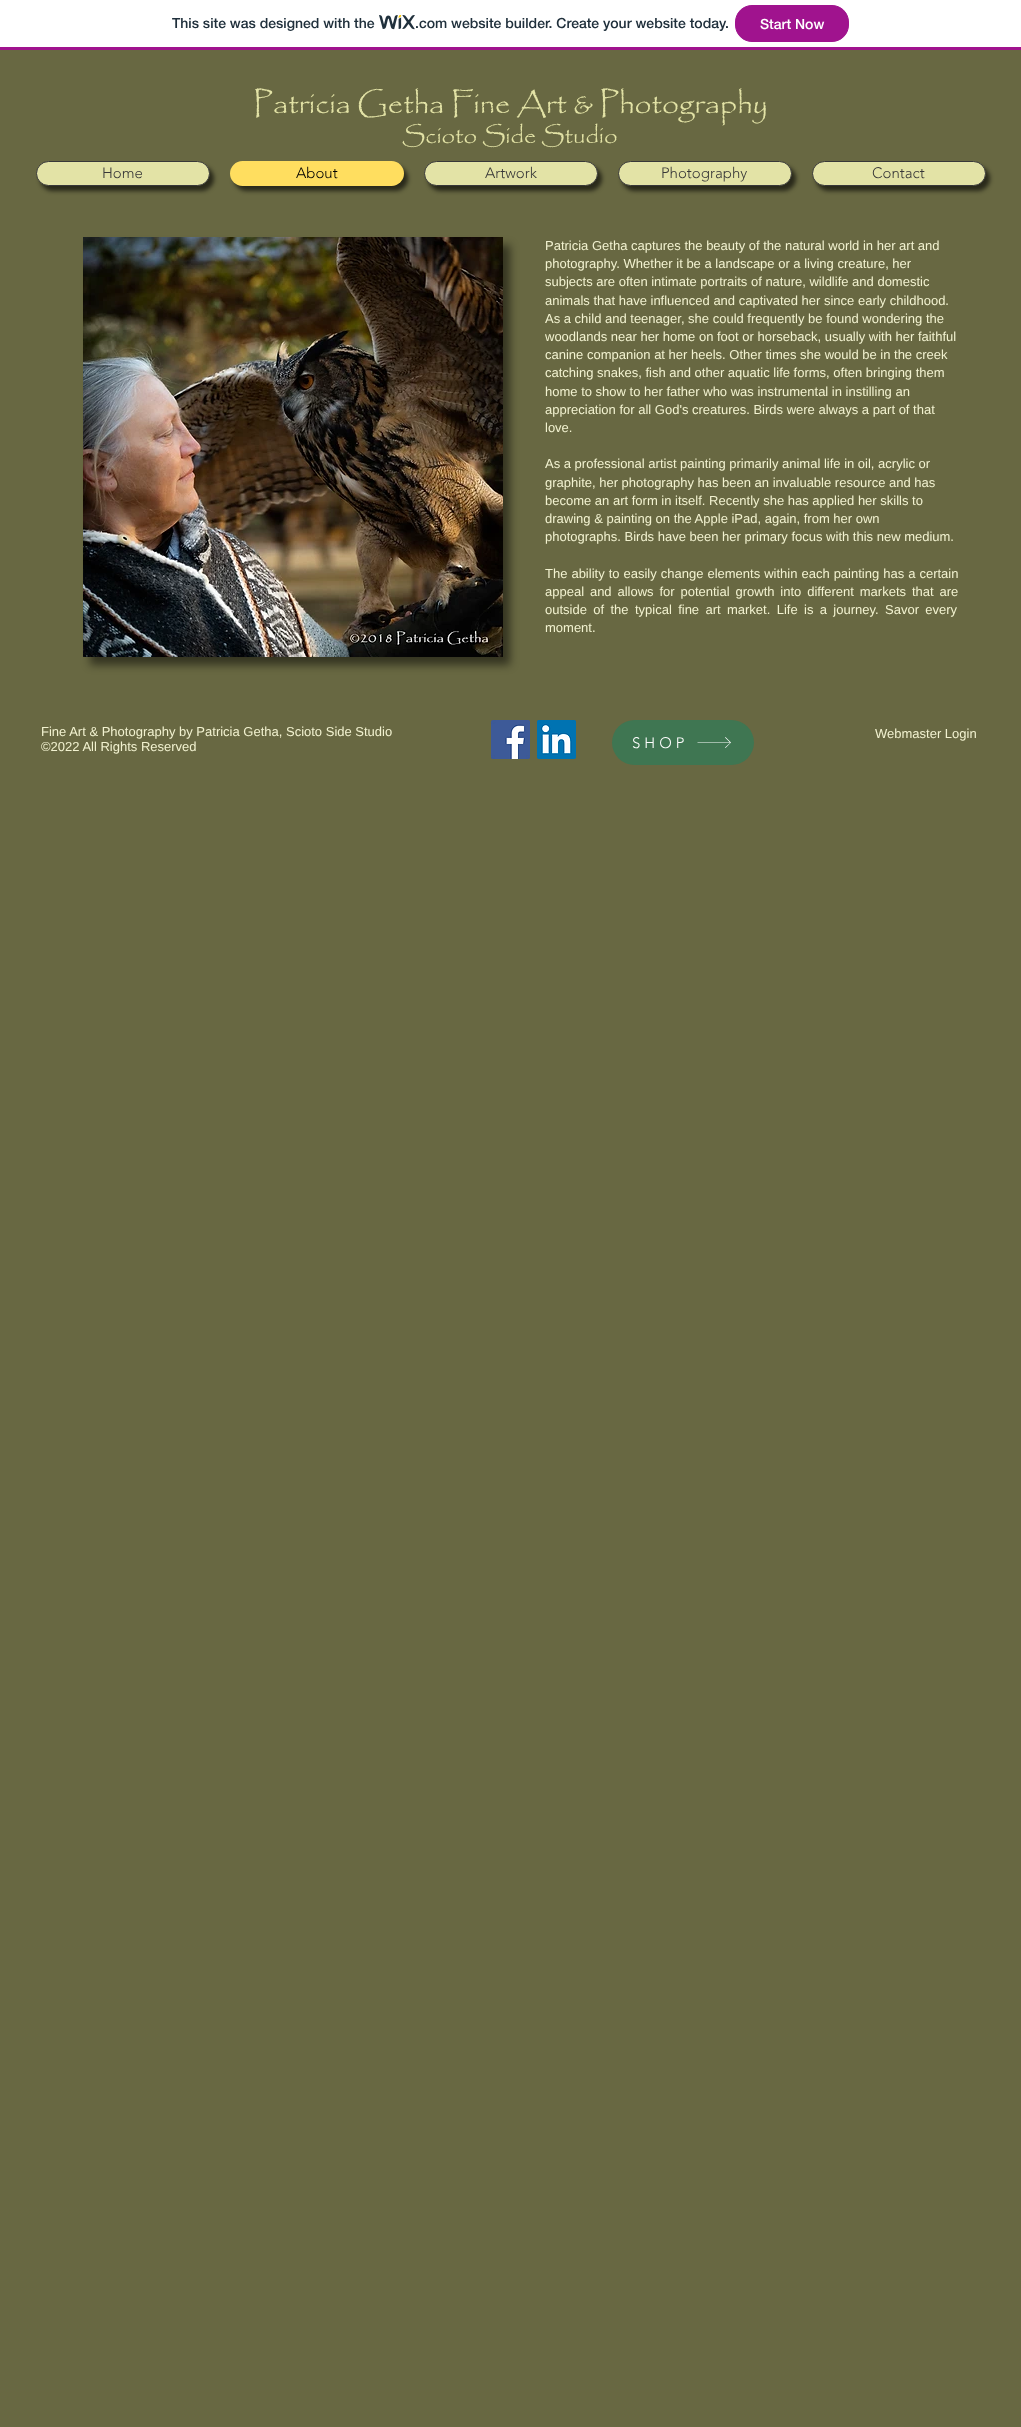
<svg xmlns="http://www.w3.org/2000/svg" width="1021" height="2427">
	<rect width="100%" height="100%" fill="#FFFFFF" />
	<rect x="0" y="47" width="1021" height="3" fill="#A0138E" />
	<text x="172" y="28" font-family="'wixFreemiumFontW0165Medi'" font-size="14" font-weight="500" fill="#20303C">This site was designed with the</text>
	<image x="379" y="15" width="36" height="15" href="assets/img1.png" />
	<text x="415" y="28" font-family="'wixFreemiumFontW0165Medi'" font-size="14" font-weight="500" fill="#20303C">.com website builder. Create your website today.</text>
	<rect x="735.5" y="5.5" width="113" height="36" rx="16.5" fill="#A0138E" stroke="#A0138E" />
	<text x="760" y="29" font-family="'wixFreemiumFontW0165Medi'" font-size="14" font-weight="500" fill="#FFFFFF">Start Now</text>
	<rect x="0" y="50" width="1021" height="2377" fill="#686842" />
	<text x="253" y="113" font-family="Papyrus" font-size="30" fill="#E3E3A6">Patricia Getha Fine Art &amp; Photography</text>
	<text x="402" y="143" font-family="Papyrus" font-size="24" fill="#E3E3A6">Scioto Side Studio</text>
	<rect x="40" y="166" width="174" height="25" rx="12.5" fill="#000000" fill-opacity="0.6" filter="blur(2px)" />
	<rect x="36.5" y="161.5" width="173" height="24" rx="12" fill="#E3E3A6" stroke="#383838" />
	<text x="102" y="178" font-family="'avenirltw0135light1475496'" font-size="15" font-weight="300" fill="#383838">Home</text>
	<rect x="234" y="166" width="174" height="25" rx="12.5" fill="#000000" fill-opacity="0.6" filter="blur(2px)" />
	<rect x="230" y="161" width="174" height="25" rx="12.5" fill="#FFDE5F" />
	<text x="296" y="178" font-family="'avenirltw0135light1475496'" font-size="15" font-weight="300" fill="#000000">About</text>
	<rect x="428" y="166" width="174" height="25" rx="12.5" fill="#000000" fill-opacity="0.6" filter="blur(2px)" />
	<rect x="424.5" y="161.5" width="173" height="24" rx="12" fill="#E3E3A6" stroke="#383838" />
	<text x="485" y="178" font-family="'avenirltw0135light1475496'" font-size="15" font-weight="300" fill="#383838">Artwork</text>
	<rect x="622" y="166" width="174" height="25" rx="12.5" fill="#000000" fill-opacity="0.6" filter="blur(2px)" />
	<rect x="618.5" y="161.5" width="173" height="24" rx="12" fill="#E3E3A6" stroke="#383838" />
	<text x="661" y="178" font-family="'avenirltw0135light1475496'" font-size="15" font-weight="300" fill="#383838">Photography</text>
	<rect x="816" y="166" width="174" height="25" rx="12.5" fill="#000000" fill-opacity="0.6" filter="blur(2px)" />
	<rect x="812.5" y="161.5" width="173" height="24" rx="12" fill="#E3E3A6" stroke="#383838" />
	<text x="872" y="178" font-family="'avenirltw0135light1475496'" font-size="15" font-weight="300" fill="#383838">Contact</text>
	<rect x="90" y="245" width="420" height="420" fill="#000000" fill-opacity="0.49" filter="blur(4px)" />
	<image x="83" y="237" width="420" height="420" href="assets/img2.png" />
	<g font-family="Liberation Sans" font-size="13" fill="#F2F2D0">
		<text x="545" y="250">Patricia Getha captures the beauty of the natural world in her art and</text>
		<text x="545" y="268">photography. Whether it be a landscape or a living creature, her</text>
		<text x="545" y="286">subjects are often intimate portraits of nature, wildlife and domestic</text>
		<text x="545" y="305">animals that have influenced and captivated her since early childhood.</text>
		<text x="545" y="323">As a child and teenager, she could frequently be found wondering the</text>
		<text x="545" y="341">woodlands near her home on foot or horseback, usually with her faithful</text>
		<text x="545" y="359">canine companion at her heels. Other times she would be in the creek</text>
		<text x="545" y="377">catching snakes, fish and other aquatic life forms, often bringing them</text>
		<text x="545" y="396">home to show to her father who was instrumental in instilling an</text>
		<text x="545" y="414">appreciation for all God's creatures. Birds were always a part of that</text>
		<text x="545" y="432">love.</text>
		<text x="545" y="468">As a professional artist painting primarily animal life in oil, acrylic or</text>
		<text x="545" y="487">graphite, her photography has been an invaluable resource and has</text>
		<text x="545" y="505">become an art form in itself. Recently she has applied her skills to</text>
		<text x="545" y="523">drawing &amp; painting on the Apple iPad, again, from her own</text>
		<text x="545" y="541">photographs. Birds have been her primary focus with this new medium.</text>
		<text x="545" y="578" word-spacing="0.4">The ability to easily change elements within each painting has a certain</text>
		<text x="545" y="596" word-spacing="2.25">appeal and allows for potential growth into different markets that are</text>
		<text x="545" y="614" word-spacing="2.75">outside of the typical fine art market. Life is a journey. Savor every</text>
		<text x="545" y="632">moment.</text>
		<text x="41" y="736">Fine Art &amp; Photography by Patricia Getha, Scioto Side Studio</text>
		<text x="41" y="751">©2022 All Rights Reserved</text>
	</g>
	<image x="491" y="720" width="39" height="39" href="assets/img3.png" />
	<image x="537" y="720" width="39" height="39" href="assets/img4.png" />
	<text x="875" y="738" font-family="Liberation Sans" font-size="13" fill="#F2F2D0">Webmaster Login</text>
	<rect x="612" y="720" width="142" height="45" rx="22.5" fill="#3F7652" />
	<text x="632" y="748" font-family="'avenirltw0135light1475496'" font-size="15" font-weight="300" letter-spacing="4" fill="#FFFFFF">SHOP</text>
	<path d="M725.5 737L725 737.5L730 742.5H697.5V743H730L725 747.5L725.5 748L731 742.5Z" fill="#FFFFFF" />
</svg>
